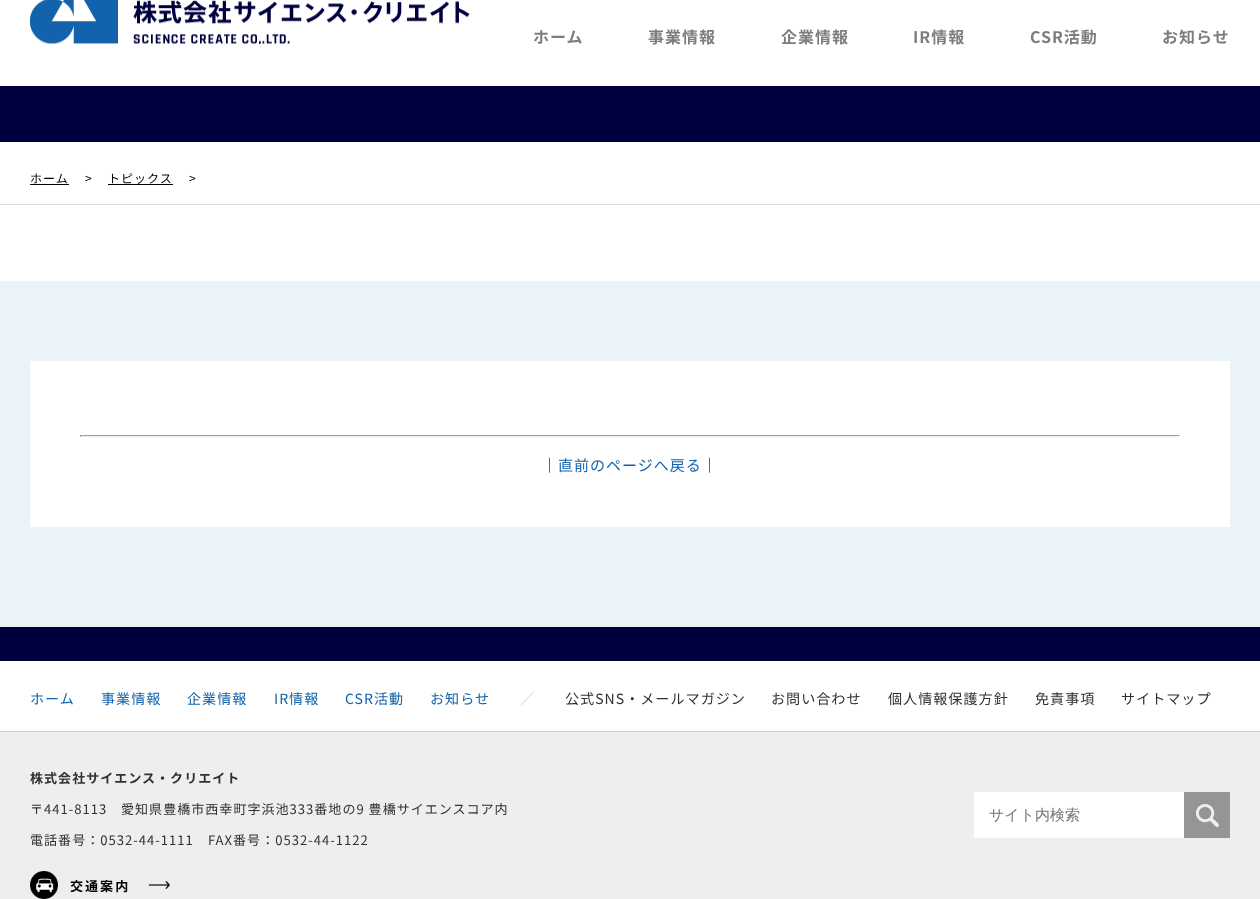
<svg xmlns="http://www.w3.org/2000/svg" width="1260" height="899">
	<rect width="100%" height="100%" fill="#EAF3F8" />
	<rect x="0" y="0" width="1260" height="86" fill="#FFFFFF" />
	<rect x="0" y="86" width="1260" height="56" fill="#00003F" />
	<image x="30" y="0" width="440" height="44" href="assets/img1.png" />
	<g font-family="Noto Sans JP" font-size="16" font-weight="700" letter-spacing="1" fill="#7D7D7D">
		<text x="533" y="43">ホーム</text>
		<text x="648" y="43">事業情報</text>
		<text x="781" y="43">企業情報</text>
		<text x="913" y="43">IR情報</text>
		<text x="1030" y="43">CSR活動</text>
		<text x="1162" y="43">お知らせ</text>
	</g>
	<rect x="0" y="142" width="1260" height="62" fill="#FFFFFF" />
	<rect x="0" y="204" width="1260" height="1" fill="#DCDCDC" />
	<text x="30" y="183" font-family="Noto Sans JP" font-size="12" letter-spacing="1" fill="#000000">ホーム</text>
	<rect x="30" y="184" width="39" height="1" fill="#000000" />
	<g font-family="Noto Sans JP" font-size="12" letter-spacing="1" fill="#000000">
		<text x="85" y="183">&gt;</text>
		<text x="108" y="183">トピックス</text>
	</g>
	<rect x="108" y="184" width="65" height="1" fill="#000000" />
	<text x="189" y="183" font-family="Noto Sans JP" font-size="12" letter-spacing="1" fill="#000000">&gt;</text>
	<rect x="0" y="205" width="1260" height="76" fill="#FFFFFF" />
	<rect x="30" y="361" width="1200" height="166" fill="#FFFFFF" />
	<rect x="80" y="435" width="1100" height="1" fill="#9F9F9F" />
	<rect x="1179" y="435" width="1" height="2" fill="#EEEEEE" />
	<rect x="80" y="436" width="1100" height="1" fill="#EEEEEE" />
	<rect x="80" y="435" width="1" height="2" fill="#9F9F9F" />
	<text x="542" y="471" font-family="Noto Sans JP" font-size="15" letter-spacing="1" fill="#000000">｜</text>
	<text x="558" y="471" font-family="Noto Sans JP" font-size="15" letter-spacing="1" fill="#1263AB">直前のページへ戻る</text>
	<text x="702" y="471" font-family="Noto Sans JP" font-size="15" letter-spacing="1" fill="#000000">｜</text>
	<rect x="0" y="661" width="1260" height="70" fill="#FFFFFF" />
	<rect x="0" y="627" width="1260" height="34" fill="#00003F" />
	<g font-family="Noto Sans JP" font-size="14.1" letter-spacing="1" fill="#1263AB">
		<text x="30" y="704">ホーム</text>
		<text x="101" y="704">事業情報</text>
		<text x="187" y="704">企業情報</text>
		<text x="274" y="704">IR情報</text>
		<text x="345" y="704">CSR活動</text>
		<text x="430" y="704">お知らせ</text>
	</g>
	<text x="520" y="704" font-family="Noto Sans JP" font-size="15" letter-spacing="1" fill="#D2D2D2">／</text>
	<g font-family="Noto Sans JP" font-size="14.1" letter-spacing="1" fill="#313131">
		<text x="565" y="704">公式SNS・メールマガジン</text>
		<text x="771" y="704">お問い合わせ</text>
		<text x="888" y="704">個人情報保護方針</text>
		<text x="1035" y="704">免責事項</text>
		<text x="1121" y="704">サイトマップ</text>
	</g>
	<rect x="0" y="732" width="1260" height="167" fill="#EEEEEE" />
	<rect x="0" y="731" width="1260" height="1" fill="#D2D2D2" />
	<text x="30" y="783" font-family="Noto Sans JP" font-size="13.05" font-weight="700" letter-spacing="1" fill="#313131">株式会社サイエンス・クリエイト</text>
	<g font-family="Noto Sans JP" font-size="13.05" letter-spacing="1" fill="#313131">
		<text x="30" y="814">〒441-8113</text>
		<text x="121" y="814">愛知県豊橋市西幸町字浜池333番地の9 豊橋サイエンスコア内</text>
		<text x="30" y="845">電話番号：0532-44-1111</text>
		<text x="208" y="845">FAX番号：0532-44-1122</text>
	</g>
	<image x="30" y="871" width="140" height="28" href="assets/img2.png" />
	<text x="70" y="891" font-family="Noto Sans JP" font-size="13.05" font-weight="700" letter-spacing="2" fill="#000000">交通案内</text>
	<rect x="974" y="792" width="210" height="46" fill="#FFFFFF" />
	<text x="989" y="820" font-family="WenQuanYi Zen Hei" font-size="15" font-weight="500" fill="#757575">サイト内検索</text>
	<image x="1184" y="792" width="46" height="46" href="assets/img3.png" />
</svg>
